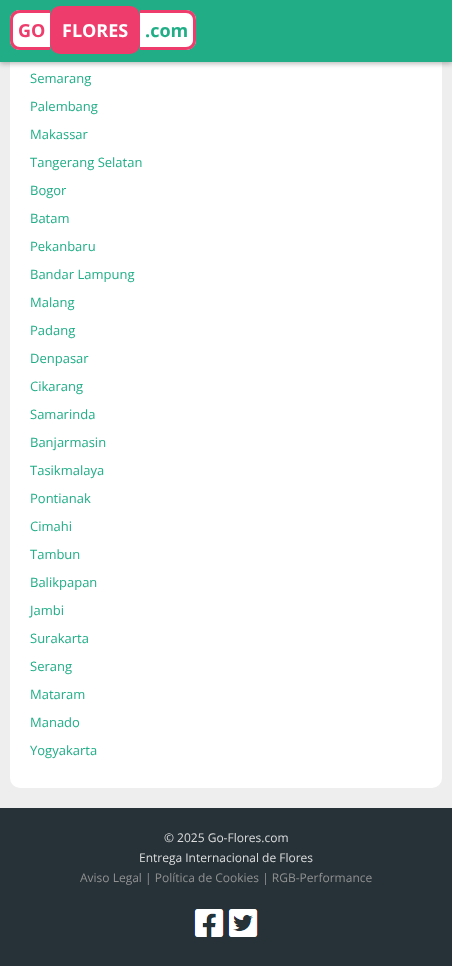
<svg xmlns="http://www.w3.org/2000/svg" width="452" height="966">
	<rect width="100%" height="100%" fill="#EEEEEE" />
	<rect x="10" y="-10" width="432" height="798" rx="10" fill="#FFFFFF" />
	<rect x="0" y="2" width="452" height="62" fill="#000000" fill-opacity="0.26" filter="blur(2.5px)" />
	<rect x="0" y="0" width="452" height="62" fill="#21AE86" />
	<path d="M20 10H45V50H20C14.5 50 10 45.5 10 40V20C10 14.5 14.5 10 20 10Z" fill="#FFFFFF" />
	<path d="M20 10H45V50H20C14 50 10 46 10 40V20C10 14 14 10 20 10ZM20 13H45V47H20C16 47 13 44 13 40V20C13 16 16 13 20 13Z" fill="#EE3C6C" fill-rule="evenodd" />
	<text x="18" y="37" font-family="Open Sans" font-size="18" font-weight="700" fill="#EE3C6C">GO</text>
	<rect x="45" y="10" width="5" height="40" fill="#FFFFFF" />
	<rect x="45" y="10" width="5" height="3" fill="#EE3C6C" />
	<rect x="45" y="47" width="5" height="3" fill="#EE3C6C" />
	<rect x="50" y="6" width="90" height="48" rx="10" fill="#EE3C6C" />
	<text x="62" y="37" font-family="Open Sans" font-size="18" font-weight="700" fill="#FFFFFF">FLORES</text>
	<path d="M145 10H186C191.5 10 196 14.5 196 20V40C196 45.5 191.5 50 186 50H145Z" fill="#FFFFFF" />
	<path d="M145 10H186C192 10 196 14 196 20V40C196 46 192 50 186 50H145ZM145 13H186C190 13 193 16 193 20V40C193 44 190 47 186 47H145Z" fill="#EE3C6C" fill-rule="evenodd" />
	<text x="145" y="37" font-family="Open Sans" font-size="18" font-weight="700" fill="#21AE86">.com</text>
	<rect x="140" y="10" width="5" height="40" fill="#FFFFFF" />
	<rect x="140" y="10" width="5" height="3" fill="#EE3C6C" />
	<rect x="140" y="47" width="5" height="3" fill="#EE3C6C" />
	<g font-family="Open Sans" font-size="13" fill="#21AE86">
		<text x="30" y="83">Semarang</text>
		<text x="30" y="111">Palembang</text>
		<text x="30" y="139">Makassar</text>
		<text x="30" y="167">Tangerang Selatan</text>
		<text x="30" y="195">Bogor</text>
		<text x="30" y="223">Batam</text>
		<text x="30" y="251">Pekanbaru</text>
		<text x="30" y="279">Bandar Lampung</text>
		<text x="30" y="307">Malang</text>
		<text x="30" y="335">Padang</text>
		<text x="30" y="363">Denpasar</text>
		<text x="30" y="391">Cikarang</text>
		<text x="30" y="419">Samarinda</text>
		<text x="30" y="447">Banjarmasin</text>
		<text x="30" y="475">Tasikmalaya</text>
		<text x="30" y="503">Pontianak</text>
		<text x="30" y="531">Cimahi</text>
		<text x="30" y="559">Tambun</text>
		<text x="30" y="587">Balikpapan</text>
		<text x="30" y="615">Jambi</text>
		<text x="30" y="643">Surakarta</text>
		<text x="30" y="671">Serang</text>
		<text x="30" y="699">Mataram</text>
		<text x="30" y="727">Manado</text>
		<text x="30" y="755">Yogyakarta</text>
	</g>
	<rect x="0" y="808" width="452" height="158" fill="#263238" />
	<g font-family="Open Sans" font-size="12" fill="#DDDDDD">
		<text x="164" y="842">© 2025 Go-Flores.com</text>
		<text x="139" y="862">Entrega Internacional de Flores</text>
	</g>
	<text x="80" y="882" font-family="Open Sans" font-size="12" fill="#919191">Aviso Legal | Política de Cookies | RGB-Performance</text>
	<image x="194" y="909" width="30" height="28" href="assets/img1.png" />
	<image x="228" y="909" width="30" height="28" href="assets/img2.png" />
</svg>
